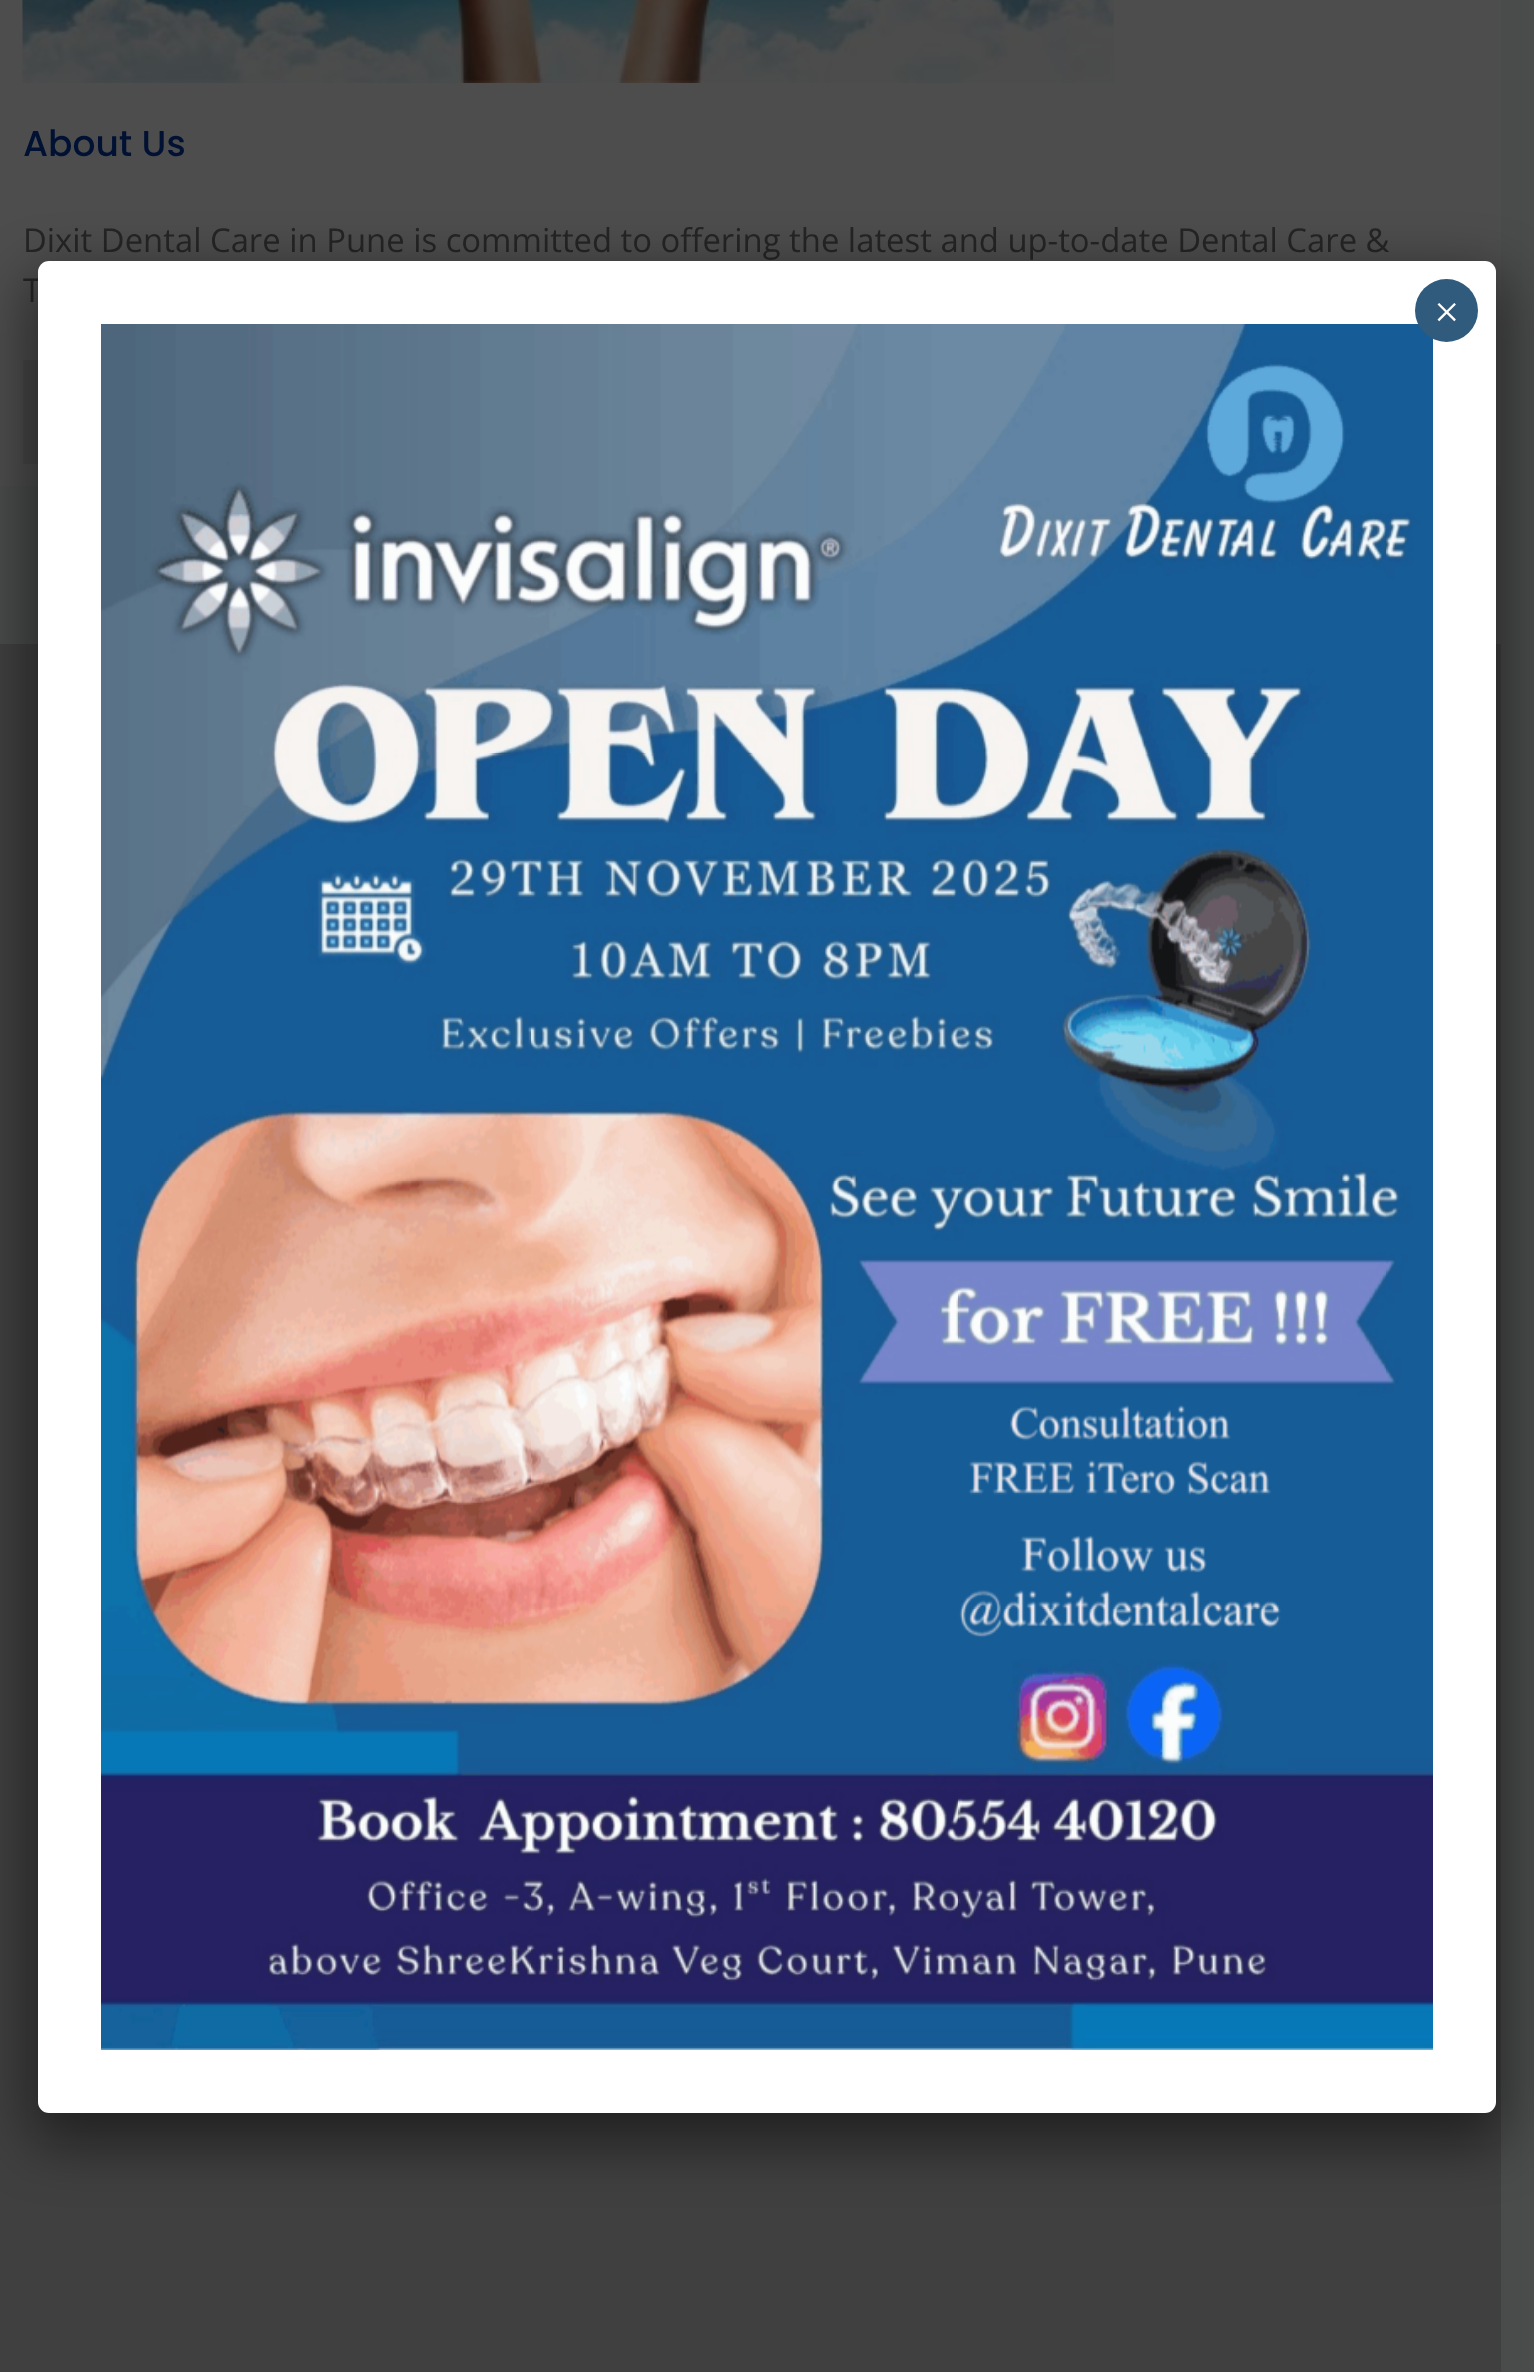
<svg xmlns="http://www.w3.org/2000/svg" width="1534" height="2372">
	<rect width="100%" height="100%" fill="#4A4B4B" />
	<rect x="0" y="0" width="1501" height="486" fill="#4D4D4D" />
	<image x="22" y="0" width="1092" height="83" href="assets/img1.png" />
	<text x="23" y="156" font-family="Poppins" font-size="36" font-weight="500" fill="#001134">About Us</text>
	<g font-family="Open Sans" font-size="32.85" fill="#252525">
		<text x="23" y="252">Dixit Dental Care in Pune is committed to offering the latest and up-to-date Dental Care &amp;</text>
		<text x="23" y="302">T</text>
	</g>
	<rect x="23" y="360" width="15" height="104" fill="#474747" />
	<rect x="0" y="644" width="1501" height="1728" fill="#404040" />
	<rect x="29" y="275" width="1476" height="1869" rx="20" fill="#020202" fill-opacity="0.5" filter="blur(28px)" />
	<rect x="38" y="261" width="1458" height="1852" rx="11" fill="#FFFFFF" />
	<image x="101" y="324" width="1332" height="1726" href="assets/img2.png" />
	<circle cx="1446.5" cy="310.5" r="31.5" fill="#315B7C" />
	<text x="1434" y="327" font-family="Liberation Serif" font-size="45" fill="#FFFFFF">×</text>
</svg>
